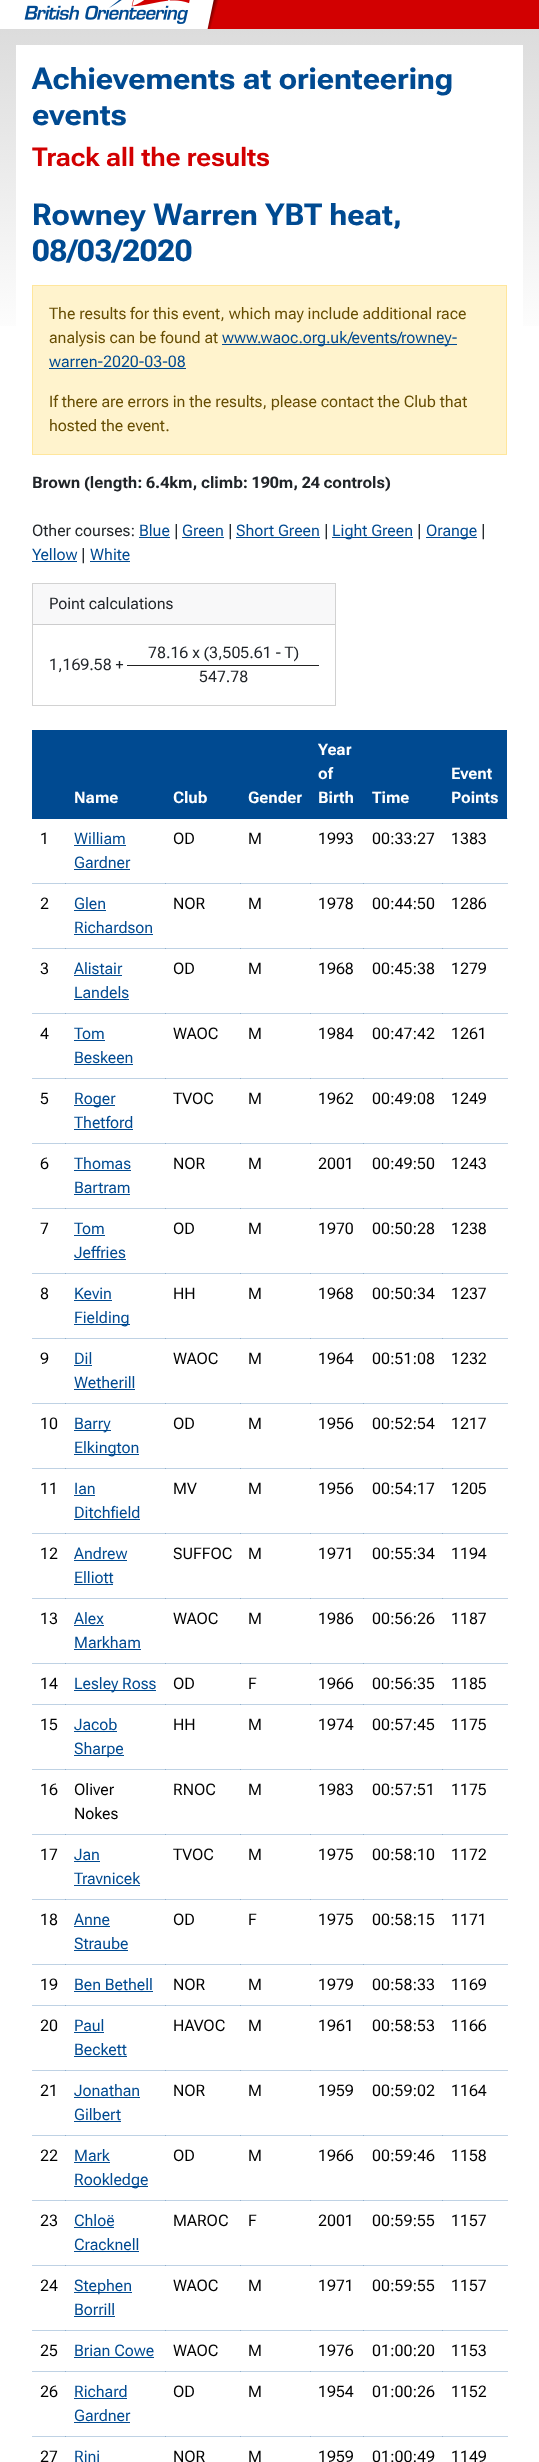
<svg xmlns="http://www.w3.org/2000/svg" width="539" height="2462">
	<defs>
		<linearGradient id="g1" gradientUnits="userSpaceOnUse" x1="8" y1="29" x2="8" y2="349"><stop offset="0" stop-color="#DCDCDC" /><stop offset="1" stop-color="#FFFFFF" /></linearGradient>
	</defs>
	<rect width="100%" height="100%" fill="#FFFFFF" />
	<rect x="207" y="0" width="332" height="29" fill="#D20001" />
	<image x="0" y="0" width="219" height="29" href="assets/img1.png" />
	<rect x="0" y="29" width="539" height="297" fill="url(#g1)" />
	<rect x="16" y="45" width="507" height="281" fill="#FFFFFF" />
	<g font-family="Roboto Flex" font-size="30.1" font-weight="700" fill="#004A91">
		<text x="32" y="89">Achievements at orienteering</text>
		<text x="32" y="125">events</text>
	</g>
	<text x="32" y="166" font-family="Roboto Flex" font-size="26" font-weight="600" fill="#D20001">Track all the results</text>
	<rect x="507" y="818" width="1" height="1" fill="#BFD2E4" />
	<rect x="32" y="883" width="476" height="1" fill="#BFD2E4" />
	<rect x="65" y="883" width="1" height="1" fill="#8FB0CF" />
	<rect x="165" y="883" width="1" height="1" fill="#8FB0CF" />
	<rect x="240" y="883" width="1" height="1" fill="#8FB0CF" />
	<rect x="310" y="883" width="1" height="1" fill="#8FB0CF" />
	<rect x="363" y="883" width="1" height="1" fill="#8FB0CF" />
	<rect x="32" y="948" width="476" height="1" fill="#BFD2E4" />
	<rect x="65" y="948" width="1" height="1" fill="#8FB0CF" />
	<rect x="165" y="948" width="1" height="1" fill="#8FB0CF" />
	<rect x="240" y="948" width="1" height="1" fill="#8FB0CF" />
	<rect x="310" y="948" width="1" height="1" fill="#8FB0CF" />
	<rect x="363" y="948" width="1" height="1" fill="#8FB0CF" />
	<rect x="32" y="1013" width="476" height="1" fill="#BFD2E4" />
	<rect x="65" y="1013" width="1" height="1" fill="#8FB0CF" />
	<rect x="165" y="1013" width="1" height="1" fill="#8FB0CF" />
	<rect x="240" y="1013" width="1" height="1" fill="#8FB0CF" />
	<rect x="310" y="1013" width="1" height="1" fill="#8FB0CF" />
	<rect x="363" y="1013" width="1" height="1" fill="#8FB0CF" />
	<rect x="32" y="1078" width="476" height="1" fill="#BFD2E4" />
	<rect x="65" y="1078" width="1" height="1" fill="#8FB0CF" />
	<rect x="165" y="1078" width="1" height="1" fill="#8FB0CF" />
	<rect x="240" y="1078" width="1" height="1" fill="#8FB0CF" />
	<rect x="310" y="1078" width="1" height="1" fill="#8FB0CF" />
	<rect x="363" y="1078" width="1" height="1" fill="#8FB0CF" />
	<rect x="32" y="1143" width="476" height="1" fill="#BFD2E4" />
	<rect x="65" y="1143" width="1" height="1" fill="#8FB0CF" />
	<rect x="165" y="1143" width="1" height="1" fill="#8FB0CF" />
	<rect x="240" y="1143" width="1" height="1" fill="#8FB0CF" />
	<rect x="310" y="1143" width="1" height="1" fill="#8FB0CF" />
	<rect x="363" y="1143" width="1" height="1" fill="#8FB0CF" />
	<rect x="32" y="1208" width="476" height="1" fill="#BFD2E4" />
	<rect x="65" y="1208" width="1" height="1" fill="#8FB0CF" />
	<rect x="165" y="1208" width="1" height="1" fill="#8FB0CF" />
	<rect x="240" y="1208" width="1" height="1" fill="#8FB0CF" />
	<rect x="310" y="1208" width="1" height="1" fill="#8FB0CF" />
	<rect x="363" y="1208" width="1" height="1" fill="#8FB0CF" />
	<rect x="32" y="1273" width="476" height="1" fill="#BFD2E4" />
	<rect x="65" y="1273" width="1" height="1" fill="#8FB0CF" />
	<rect x="165" y="1273" width="1" height="1" fill="#8FB0CF" />
	<rect x="240" y="1273" width="1" height="1" fill="#8FB0CF" />
	<rect x="310" y="1273" width="1" height="1" fill="#8FB0CF" />
	<rect x="363" y="1273" width="1" height="1" fill="#8FB0CF" />
	<rect x="32" y="1338" width="476" height="1" fill="#BFD2E4" />
	<rect x="65" y="1338" width="1" height="1" fill="#8FB0CF" />
	<rect x="165" y="1338" width="1" height="1" fill="#8FB0CF" />
	<rect x="240" y="1338" width="1" height="1" fill="#8FB0CF" />
	<rect x="310" y="1338" width="1" height="1" fill="#8FB0CF" />
	<rect x="363" y="1338" width="1" height="1" fill="#8FB0CF" />
	<rect x="32" y="1403" width="476" height="1" fill="#BFD2E4" />
	<rect x="65" y="1403" width="1" height="1" fill="#8FB0CF" />
	<rect x="165" y="1403" width="1" height="1" fill="#8FB0CF" />
	<rect x="240" y="1403" width="1" height="1" fill="#8FB0CF" />
	<rect x="310" y="1403" width="1" height="1" fill="#8FB0CF" />
	<rect x="363" y="1403" width="1" height="1" fill="#8FB0CF" />
	<rect x="32" y="1468" width="476" height="1" fill="#BFD2E4" />
	<rect x="65" y="1468" width="1" height="1" fill="#8FB0CF" />
	<rect x="165" y="1468" width="1" height="1" fill="#8FB0CF" />
	<rect x="240" y="1468" width="1" height="1" fill="#8FB0CF" />
	<rect x="310" y="1468" width="1" height="1" fill="#8FB0CF" />
	<rect x="363" y="1468" width="1" height="1" fill="#8FB0CF" />
	<rect x="32" y="1533" width="476" height="1" fill="#BFD2E4" />
	<rect x="65" y="1533" width="1" height="1" fill="#8FB0CF" />
	<rect x="165" y="1533" width="1" height="1" fill="#8FB0CF" />
	<rect x="240" y="1533" width="1" height="1" fill="#8FB0CF" />
	<rect x="310" y="1533" width="1" height="1" fill="#8FB0CF" />
	<rect x="363" y="1533" width="1" height="1" fill="#8FB0CF" />
	<rect x="32" y="1598" width="476" height="1" fill="#BFD2E4" />
	<rect x="65" y="1598" width="1" height="1" fill="#8FB0CF" />
	<rect x="165" y="1598" width="1" height="1" fill="#8FB0CF" />
	<rect x="240" y="1598" width="1" height="1" fill="#8FB0CF" />
	<rect x="310" y="1598" width="1" height="1" fill="#8FB0CF" />
	<rect x="363" y="1598" width="1" height="1" fill="#8FB0CF" />
	<rect x="32" y="1663" width="476" height="1" fill="#BFD2E4" />
	<rect x="65" y="1663" width="1" height="1" fill="#8FB0CF" />
	<rect x="165" y="1663" width="1" height="1" fill="#8FB0CF" />
	<rect x="240" y="1663" width="1" height="1" fill="#8FB0CF" />
	<rect x="310" y="1663" width="1" height="1" fill="#8FB0CF" />
	<rect x="363" y="1663" width="1" height="1" fill="#8FB0CF" />
	<rect x="32" y="1704" width="476" height="1" fill="#BFD2E4" />
	<rect x="65" y="1704" width="1" height="1" fill="#8FB0CF" />
	<rect x="165" y="1704" width="1" height="1" fill="#8FB0CF" />
	<rect x="240" y="1704" width="1" height="1" fill="#8FB0CF" />
	<rect x="310" y="1704" width="1" height="1" fill="#8FB0CF" />
	<rect x="363" y="1704" width="1" height="1" fill="#8FB0CF" />
	<rect x="32" y="1769" width="476" height="1" fill="#BFD2E4" />
	<rect x="65" y="1769" width="1" height="1" fill="#8FB0CF" />
	<rect x="165" y="1769" width="1" height="1" fill="#8FB0CF" />
	<rect x="240" y="1769" width="1" height="1" fill="#8FB0CF" />
	<rect x="310" y="1769" width="1" height="1" fill="#8FB0CF" />
	<rect x="363" y="1769" width="1" height="1" fill="#8FB0CF" />
	<rect x="32" y="1834" width="476" height="1" fill="#BFD2E4" />
	<rect x="65" y="1834" width="1" height="1" fill="#8FB0CF" />
	<rect x="165" y="1834" width="1" height="1" fill="#8FB0CF" />
	<rect x="240" y="1834" width="1" height="1" fill="#8FB0CF" />
	<rect x="310" y="1834" width="1" height="1" fill="#8FB0CF" />
	<rect x="363" y="1834" width="1" height="1" fill="#8FB0CF" />
	<rect x="32" y="1899" width="476" height="1" fill="#BFD2E4" />
	<rect x="65" y="1899" width="1" height="1" fill="#8FB0CF" />
	<rect x="165" y="1899" width="1" height="1" fill="#8FB0CF" />
	<rect x="240" y="1899" width="1" height="1" fill="#8FB0CF" />
	<rect x="310" y="1899" width="1" height="1" fill="#8FB0CF" />
	<rect x="363" y="1899" width="1" height="1" fill="#8FB0CF" />
	<rect x="32" y="1964" width="476" height="1" fill="#BFD2E4" />
	<rect x="65" y="1964" width="1" height="1" fill="#8FB0CF" />
	<rect x="165" y="1964" width="1" height="1" fill="#8FB0CF" />
	<rect x="240" y="1964" width="1" height="1" fill="#8FB0CF" />
	<rect x="310" y="1964" width="1" height="1" fill="#8FB0CF" />
	<rect x="363" y="1964" width="1" height="1" fill="#8FB0CF" />
	<rect x="32" y="2005" width="476" height="1" fill="#BFD2E4" />
	<rect x="65" y="2005" width="1" height="1" fill="#8FB0CF" />
	<rect x="165" y="2005" width="1" height="1" fill="#8FB0CF" />
	<rect x="240" y="2005" width="1" height="1" fill="#8FB0CF" />
	<rect x="310" y="2005" width="1" height="1" fill="#8FB0CF" />
	<rect x="363" y="2005" width="1" height="1" fill="#8FB0CF" />
	<rect x="32" y="2070" width="476" height="1" fill="#BFD2E4" />
	<rect x="65" y="2070" width="1" height="1" fill="#8FB0CF" />
	<rect x="165" y="2070" width="1" height="1" fill="#8FB0CF" />
	<rect x="240" y="2070" width="1" height="1" fill="#8FB0CF" />
	<rect x="310" y="2070" width="1" height="1" fill="#8FB0CF" />
	<rect x="363" y="2070" width="1" height="1" fill="#8FB0CF" />
	<rect x="32" y="2135" width="476" height="1" fill="#BFD2E4" />
	<rect x="65" y="2135" width="1" height="1" fill="#8FB0CF" />
	<rect x="165" y="2135" width="1" height="1" fill="#8FB0CF" />
	<rect x="240" y="2135" width="1" height="1" fill="#8FB0CF" />
	<rect x="310" y="2135" width="1" height="1" fill="#8FB0CF" />
	<rect x="363" y="2135" width="1" height="1" fill="#8FB0CF" />
	<rect x="32" y="2200" width="476" height="1" fill="#BFD2E4" />
	<rect x="65" y="2200" width="1" height="1" fill="#8FB0CF" />
	<rect x="165" y="2200" width="1" height="1" fill="#8FB0CF" />
	<rect x="240" y="2200" width="1" height="1" fill="#8FB0CF" />
	<rect x="310" y="2200" width="1" height="1" fill="#8FB0CF" />
	<rect x="363" y="2200" width="1" height="1" fill="#8FB0CF" />
	<rect x="32" y="2265" width="476" height="1" fill="#BFD2E4" />
	<rect x="65" y="2265" width="1" height="1" fill="#8FB0CF" />
	<rect x="165" y="2265" width="1" height="1" fill="#8FB0CF" />
	<rect x="240" y="2265" width="1" height="1" fill="#8FB0CF" />
	<rect x="310" y="2265" width="1" height="1" fill="#8FB0CF" />
	<rect x="363" y="2265" width="1" height="1" fill="#8FB0CF" />
	<rect x="32" y="2330" width="476" height="1" fill="#BFD2E4" />
	<rect x="65" y="2330" width="1" height="1" fill="#8FB0CF" />
	<rect x="165" y="2330" width="1" height="1" fill="#8FB0CF" />
	<rect x="240" y="2330" width="1" height="1" fill="#8FB0CF" />
	<rect x="310" y="2330" width="1" height="1" fill="#8FB0CF" />
	<rect x="363" y="2330" width="1" height="1" fill="#8FB0CF" />
	<rect x="32" y="2371" width="476" height="1" fill="#BFD2E4" />
	<rect x="65" y="2371" width="1" height="1" fill="#8FB0CF" />
	<rect x="165" y="2371" width="1" height="1" fill="#8FB0CF" />
	<rect x="240" y="2371" width="1" height="1" fill="#8FB0CF" />
	<rect x="310" y="2371" width="1" height="1" fill="#8FB0CF" />
	<rect x="363" y="2371" width="1" height="1" fill="#8FB0CF" />
	<rect x="32" y="2436" width="476" height="1" fill="#BFD2E4" />
	<rect x="65" y="2436" width="1" height="1" fill="#8FB0CF" />
	<rect x="165" y="2436" width="1" height="1" fill="#8FB0CF" />
	<rect x="240" y="2436" width="1" height="1" fill="#8FB0CF" />
	<rect x="310" y="2436" width="1" height="1" fill="#8FB0CF" />
	<rect x="363" y="2436" width="1" height="1" fill="#8FB0CF" />
	<g font-family="Roboto Flex" font-size="30.1" font-weight="700" fill="#004A91">
		<text x="32" y="225">Rowney Warren YBT heat,</text>
		<text x="32" y="261">08/03/2020</text>
	</g>
	<rect x="32.5" y="285.5" width="474" height="169" fill="#FFF3CD" stroke="#FFE69C" />
	<g font-family="Roboto Flex" font-size="16" fill="#664D03">
		<text x="49" y="319">The results for this event, which may include additional race</text>
		<text x="49" y="343">analysis can be found at</text>
	</g>
	<rect x="222" y="344" width="235" height="1" fill="#004A91" />
	<g font-family="Roboto Flex" font-size="16" fill="#004A91">
		<text x="222" y="343">www.waoc.org.uk/events/rowney-</text>
		<text x="49" y="367">warren-2020-03-08</text>
	</g>
	<rect x="49" y="368" width="137" height="1" fill="#004A91" />
	<g font-family="Roboto Flex" font-size="16" fill="#664D03">
		<text x="49" y="407">If there are errors in the results, please contact the Club that</text>
		<text x="49" y="431">hosted the event.</text>
	</g>
	<text x="32" y="488" word-spacing="-0.25" font-family="'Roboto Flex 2'" font-size="16" font-weight="700" fill="#212529">Brown (length: 6.4km, climb: 190m, 24 controls)</text>
	<text x="32" y="536" font-family="Roboto Flex" font-size="16" fill="#212529">Other courses:</text>
	<text x="139" y="536" font-family="Roboto Flex" font-size="16" fill="#004A91">Blue</text>
	<rect x="139" y="537" width="31" height="1" fill="#004A91" />
	<text x="174" y="536" font-family="Roboto Flex" font-size="16" fill="#212529">|</text>
	<text x="182" y="536" font-family="Roboto Flex" font-size="16" fill="#004A91">Green</text>
	<rect x="182" y="537" width="42" height="1" fill="#004A91" />
	<text x="228" y="536" font-family="Roboto Flex" font-size="16" fill="#212529">|</text>
	<text x="236" y="536" font-family="Roboto Flex" font-size="16" fill="#004A91">Short Green</text>
	<rect x="236" y="537" width="84" height="1" fill="#004A91" />
	<text x="324" y="536" font-family="Roboto Flex" font-size="16" fill="#212529">|</text>
	<rect x="332" y="537" width="81" height="1" fill="#004A91" />
	<text x="332" y="536" font-family="Roboto Flex" font-size="16" fill="#004A91">Light Green</text>
	<text x="417" y="536" font-family="Roboto Flex" font-size="16" fill="#212529">|</text>
	<rect x="426" y="537" width="51" height="1" fill="#004A91" />
	<text x="426" y="536" font-family="Roboto Flex" font-size="16" fill="#004A91">Orange</text>
	<text x="481" y="536" font-family="Roboto Flex" font-size="16" fill="#212529">|</text>
	<text x="32" y="560" font-family="Roboto Flex" font-size="16" fill="#004A91">Yellow</text>
	<rect x="32" y="561" width="45" height="1" fill="#004A91" />
	<text x="81" y="560" font-family="Roboto Flex" font-size="16" fill="#212529">|</text>
	<text x="90" y="560" font-family="Roboto Flex" font-size="16" fill="#004A91">White</text>
	<rect x="90" y="561" width="40" height="1" fill="#004A91" />
	<rect x="32.5" y="583.5" width="303" height="122" fill="none" stroke="#D2D2D2" />
	<rect x="33" y="584" width="302" height="40" fill="#F8F8F9" />
	<rect x="33" y="624" width="302" height="1" fill="#CCCCCD" />
	<text x="49" y="609" font-family="Roboto Flex" font-size="16" fill="#212529">Point calculations</text>
	<rect x="127" y="665" width="192" height="1" fill="#222222" />
	<g font-family="Roboto Flex" font-size="16" fill="#212529">
		<text x="148" y="658">78.16 x (3,505.61 - T)</text>
		<text x="49" y="670">1,169.58 +</text>
		<text x="199" y="682">547.78</text>
	</g>
	<rect x="32" y="730" width="411" height="89" fill="#004A91" />
	<g font-family="'Roboto Flex 2'" font-size="16" font-weight="700" fill="#FFFFFF">
		<text x="74" y="803">Name</text>
		<text x="173" y="803">Club</text>
		<text x="248" y="803">Gender</text>
		<text x="318" y="755">Year</text>
		<text x="318" y="779">of</text>
		<text x="318" y="803">Birth</text>
		<text x="372" y="803">Time</text>
	</g>
	<rect x="443" y="730" width="64" height="89" fill="#004A91" />
	<g font-family="'Roboto Flex 2'" font-size="16" font-weight="700" fill="#FFFFFF">
		<text x="451" y="779">Event</text>
		<text x="451" y="803">Points</text>
	</g>
	<text x="40" y="844" font-family="Roboto Flex" font-size="16" fill="#000000">1</text>
	<text x="74" y="844" font-family="Roboto Flex" font-size="16" fill="#004A91">William</text>
	<rect x="74" y="845" width="52" height="1" fill="#004A91" />
	<text x="74" y="868" font-family="Roboto Flex" font-size="16" fill="#004A91">Gardner</text>
	<rect x="74" y="869" width="56" height="1" fill="#004A91" />
	<g font-family="Roboto Flex" font-size="16" fill="#000000">
		<text x="173" y="844">OD</text>
		<text x="248" y="844">M</text>
		<text x="318" y="844">1993</text>
		<text x="372" y="844">00:33:27</text>
	</g>
	<rect x="442" y="883" width="1" height="1" fill="#8FB0CF" />
	<g font-family="Roboto Flex" font-size="16" fill="#000000">
		<text x="451" y="844">1383</text>
		<text x="40" y="909">2</text>
	</g>
	<text x="74" y="909" font-family="Roboto Flex" font-size="16" fill="#004A91">Glen</text>
	<rect x="74" y="910" width="32" height="1" fill="#004A91" />
	<text x="74" y="933" font-family="Roboto Flex" font-size="16" fill="#004A91">Richardson</text>
	<rect x="74" y="934" width="79" height="1" fill="#004A91" />
	<g font-family="Roboto Flex" font-size="16" fill="#000000">
		<text x="173" y="909">NOR</text>
		<text x="248" y="909">M</text>
		<text x="318" y="909">1978</text>
		<text x="372" y="909">00:44:50</text>
	</g>
	<rect x="442" y="948" width="1" height="1" fill="#8FB0CF" />
	<g font-family="Roboto Flex" font-size="16" fill="#000000">
		<text x="451" y="909">1286</text>
		<text x="40" y="974">3</text>
	</g>
	<text x="74" y="974" font-family="Roboto Flex" font-size="16" fill="#004A91">Alistair</text>
	<rect x="74" y="975" width="48" height="1" fill="#004A91" />
	<text x="74" y="998" font-family="Roboto Flex" font-size="16" fill="#004A91">Landels</text>
	<rect x="74" y="999" width="55" height="1" fill="#004A91" />
	<g font-family="Roboto Flex" font-size="16" fill="#000000">
		<text x="173" y="974">OD</text>
		<text x="248" y="974">M</text>
		<text x="318" y="974">1968</text>
		<text x="372" y="974">00:45:38</text>
	</g>
	<rect x="442" y="1013" width="1" height="1" fill="#8FB0CF" />
	<g font-family="Roboto Flex" font-size="16" fill="#000000">
		<text x="451" y="974">1279</text>
		<text x="40" y="1039">4</text>
	</g>
	<text x="74" y="1039" font-family="Roboto Flex" font-size="16" fill="#004A91">Tom</text>
	<rect x="74" y="1040" width="31" height="1" fill="#004A91" />
	<text x="74" y="1063" font-family="Roboto Flex" font-size="16" fill="#004A91">Beskeen</text>
	<rect x="74" y="1064" width="59" height="1" fill="#004A91" />
	<g font-family="Roboto Flex" font-size="16" fill="#000000">
		<text x="173" y="1039">WAOC</text>
		<text x="248" y="1039">M</text>
		<text x="318" y="1039">1984</text>
		<text x="372" y="1039">00:47:42</text>
	</g>
	<rect x="442" y="1078" width="1" height="1" fill="#8FB0CF" />
	<g font-family="Roboto Flex" font-size="16" fill="#000000">
		<text x="451" y="1039">1261</text>
		<text x="40" y="1104">5</text>
	</g>
	<rect x="74" y="1105" width="41" height="1" fill="#004A91" />
	<g font-family="Roboto Flex" font-size="16" fill="#004A91">
		<text x="74" y="1104">Roger</text>
		<text x="74" y="1128">Thetford</text>
	</g>
	<rect x="74" y="1129" width="59" height="1" fill="#004A91" />
	<g font-family="Roboto Flex" font-size="16" fill="#000000">
		<text x="173" y="1104">TVOC</text>
		<text x="248" y="1104">M</text>
		<text x="318" y="1104">1962</text>
		<text x="372" y="1104">00:49:08</text>
	</g>
	<rect x="442" y="1143" width="1" height="1" fill="#8FB0CF" />
	<g font-family="Roboto Flex" font-size="16" fill="#000000">
		<text x="451" y="1104">1249</text>
		<text x="40" y="1169">6</text>
	</g>
	<text x="74" y="1169" font-family="Roboto Flex" font-size="16" fill="#004A91">Thomas</text>
	<rect x="74" y="1170" width="57" height="1" fill="#004A91" />
	<text x="74" y="1193" font-family="Roboto Flex" font-size="16" fill="#004A91">Bartram</text>
	<rect x="74" y="1194" width="56" height="1" fill="#004A91" />
	<g font-family="Roboto Flex" font-size="16" fill="#000000">
		<text x="173" y="1169">NOR</text>
		<text x="248" y="1169">M</text>
		<text x="318" y="1169">2001</text>
		<text x="372" y="1169">00:49:50</text>
	</g>
	<rect x="442" y="1208" width="1" height="1" fill="#8FB0CF" />
	<g font-family="Roboto Flex" font-size="16" fill="#000000">
		<text x="451" y="1169">1243</text>
		<text x="40" y="1234">7</text>
	</g>
	<text x="74" y="1234" font-family="Roboto Flex" font-size="16" fill="#004A91">Tom</text>
	<rect x="74" y="1235" width="31" height="1" fill="#004A91" />
	<text x="74" y="1258" font-family="Roboto Flex" font-size="16" fill="#004A91">Jeffries</text>
	<rect x="74" y="1259" width="52" height="1" fill="#004A91" />
	<g font-family="Roboto Flex" font-size="16" fill="#000000">
		<text x="173" y="1234">OD</text>
		<text x="248" y="1234">M</text>
		<text x="318" y="1234">1970</text>
		<text x="372" y="1234">00:50:28</text>
	</g>
	<rect x="442" y="1273" width="1" height="1" fill="#8FB0CF" />
	<g font-family="Roboto Flex" font-size="16" fill="#000000">
		<text x="451" y="1234">1238</text>
		<text x="40" y="1299">8</text>
	</g>
	<text x="74" y="1299" font-family="Roboto Flex" font-size="16" fill="#004A91">Kevin</text>
	<rect x="74" y="1300" width="38" height="1" fill="#004A91" />
	<rect x="74" y="1324" width="56" height="1" fill="#004A91" />
	<text x="74" y="1323" font-family="Roboto Flex" font-size="16" fill="#004A91">Fielding</text>
	<g font-family="Roboto Flex" font-size="16" fill="#000000">
		<text x="173" y="1299">HH</text>
		<text x="248" y="1299">M</text>
		<text x="318" y="1299">1968</text>
		<text x="372" y="1299">00:50:34</text>
	</g>
	<rect x="442" y="1338" width="1" height="1" fill="#8FB0CF" />
	<g font-family="Roboto Flex" font-size="16" fill="#000000">
		<text x="451" y="1299">1237</text>
		<text x="40" y="1364">9</text>
	</g>
	<text x="74" y="1364" font-family="Roboto Flex" font-size="16" fill="#004A91">Dil</text>
	<rect x="74" y="1365" width="18" height="1" fill="#004A91" />
	<text x="74" y="1388" font-family="Roboto Flex" font-size="16" fill="#004A91">Wetherill</text>
	<rect x="74" y="1389" width="61" height="1" fill="#004A91" />
	<g font-family="Roboto Flex" font-size="16" fill="#000000">
		<text x="173" y="1364">WAOC</text>
		<text x="248" y="1364">M</text>
		<text x="318" y="1364">1964</text>
		<text x="372" y="1364">00:51:08</text>
	</g>
	<rect x="442" y="1403" width="1" height="1" fill="#8FB0CF" />
	<g font-family="Roboto Flex" font-size="16" fill="#000000">
		<text x="451" y="1364">1232</text>
		<text x="40" y="1429">10</text>
	</g>
	<rect x="74" y="1430" width="37" height="1" fill="#004A91" />
	<text x="74" y="1429" font-family="Roboto Flex" font-size="16" fill="#004A91">Barry</text>
	<rect x="74" y="1454" width="65" height="1" fill="#004A91" />
	<text x="74" y="1453" font-family="Roboto Flex" font-size="16" fill="#004A91">Elkington</text>
	<g font-family="Roboto Flex" font-size="16" fill="#000000">
		<text x="173" y="1429">OD</text>
		<text x="248" y="1429">M</text>
		<text x="318" y="1429">1956</text>
		<text x="372" y="1429">00:52:54</text>
	</g>
	<rect x="442" y="1468" width="1" height="1" fill="#8FB0CF" />
	<g font-family="Roboto Flex" font-size="16" fill="#000000">
		<text x="451" y="1429">1217</text>
		<text x="40" y="1494">11</text>
	</g>
	<text x="74" y="1494" font-family="Roboto Flex" font-size="16" fill="#004A91">Ian</text>
	<rect x="74" y="1495" width="21" height="1" fill="#004A91" />
	<text x="74" y="1518" font-family="Roboto Flex" font-size="16" fill="#004A91">Ditchfield</text>
	<rect x="74" y="1519" width="66" height="1" fill="#004A91" />
	<g font-family="Roboto Flex" font-size="16" fill="#000000">
		<text x="173" y="1494">MV</text>
		<text x="248" y="1494">M</text>
		<text x="318" y="1494">1956</text>
		<text x="372" y="1494">00:54:17</text>
	</g>
	<rect x="442" y="1533" width="1" height="1" fill="#8FB0CF" />
	<g font-family="Roboto Flex" font-size="16" fill="#000000">
		<text x="451" y="1494">1205</text>
		<text x="40" y="1559">12</text>
	</g>
	<text x="74" y="1559" font-family="Roboto Flex" font-size="16" fill="#004A91">Andrew</text>
	<rect x="74" y="1560" width="53" height="1" fill="#004A91" />
	<text x="74" y="1583" font-family="Roboto Flex" font-size="16" fill="#004A91">Elliott</text>
	<rect x="74" y="1584" width="39" height="1" fill="#004A91" />
	<g font-family="Roboto Flex" font-size="16" fill="#000000">
		<text x="173" y="1559">SUFFOC</text>
		<text x="248" y="1559">M</text>
		<text x="318" y="1559">1971</text>
		<text x="372" y="1559">00:55:34</text>
	</g>
	<rect x="442" y="1598" width="1" height="1" fill="#8FB0CF" />
	<g font-family="Roboto Flex" font-size="16" fill="#000000">
		<text x="451" y="1559">1194</text>
		<text x="40" y="1624">13</text>
	</g>
	<text x="74" y="1624" font-family="Roboto Flex" font-size="16" fill="#004A91">Alex</text>
	<rect x="74" y="1625" width="30" height="1" fill="#004A91" />
	<text x="74" y="1648" font-family="Roboto Flex" font-size="16" fill="#004A91">Markham</text>
	<rect x="74" y="1649" width="67" height="1" fill="#004A91" />
	<g font-family="Roboto Flex" font-size="16" fill="#000000">
		<text x="173" y="1624">WAOC</text>
		<text x="248" y="1624">M</text>
		<text x="318" y="1624">1986</text>
		<text x="372" y="1624">00:56:26</text>
	</g>
	<rect x="442" y="1663" width="1" height="1" fill="#8FB0CF" />
	<g font-family="Roboto Flex" font-size="16" fill="#000000">
		<text x="451" y="1624">1187</text>
		<text x="40" y="1689">14</text>
	</g>
	<rect x="74" y="1690" width="82" height="1" fill="#004A91" />
	<text x="74" y="1689" font-family="Roboto Flex" font-size="16" fill="#004A91">Lesley Ross</text>
	<g font-family="Roboto Flex" font-size="16" fill="#000000">
		<text x="173" y="1689">OD</text>
		<text x="248" y="1689">F</text>
		<text x="318" y="1689">1966</text>
		<text x="372" y="1689">00:56:35</text>
	</g>
	<rect x="442" y="1704" width="1" height="1" fill="#8FB0CF" />
	<g font-family="Roboto Flex" font-size="16" fill="#000000">
		<text x="451" y="1689">1185</text>
		<text x="40" y="1730">15</text>
	</g>
	<text x="74" y="1730" font-family="Roboto Flex" font-size="16" fill="#004A91">Jacob</text>
	<rect x="74" y="1731" width="43" height="1" fill="#004A91" />
	<rect x="74" y="1755" width="50" height="1" fill="#004A91" />
	<text x="74" y="1754" font-family="Roboto Flex" font-size="16" fill="#004A91">Sharpe</text>
	<g font-family="Roboto Flex" font-size="16" fill="#000000">
		<text x="173" y="1730">HH</text>
		<text x="248" y="1730">M</text>
		<text x="318" y="1730">1974</text>
		<text x="372" y="1730">00:57:45</text>
	</g>
	<rect x="442" y="1769" width="1" height="1" fill="#8FB0CF" />
	<g font-family="Roboto Flex" font-size="16" fill="#000000">
		<text x="451" y="1730">1175</text>
		<text x="40" y="1795">16</text>
		<text x="74" y="1795">Oliver</text>
		<text x="74" y="1819">Nokes</text>
		<text x="173" y="1795">RNOC</text>
		<text x="248" y="1795">M</text>
		<text x="318" y="1795">1983</text>
		<text x="372" y="1795">00:57:51</text>
	</g>
	<rect x="442" y="1834" width="1" height="1" fill="#8FB0CF" />
	<g font-family="Roboto Flex" font-size="16" fill="#000000">
		<text x="451" y="1795">1175</text>
		<text x="40" y="1860">17</text>
	</g>
	<text x="74" y="1860" font-family="Roboto Flex" font-size="16" fill="#004A91">Jan</text>
	<rect x="74" y="1861" width="26" height="1" fill="#004A91" />
	<text x="74" y="1884" font-family="Roboto Flex" font-size="16" fill="#004A91">Travnicek</text>
	<rect x="74" y="1885" width="66" height="1" fill="#004A91" />
	<g font-family="Roboto Flex" font-size="16" fill="#000000">
		<text x="173" y="1860">TVOC</text>
		<text x="248" y="1860">M</text>
		<text x="318" y="1860">1975</text>
		<text x="372" y="1860">00:58:10</text>
	</g>
	<rect x="442" y="1899" width="1" height="1" fill="#8FB0CF" />
	<g font-family="Roboto Flex" font-size="16" fill="#000000">
		<text x="451" y="1860">1172</text>
		<text x="40" y="1925">18</text>
	</g>
	<text x="74" y="1925" font-family="Roboto Flex" font-size="16" fill="#004A91">Anne</text>
	<rect x="74" y="1926" width="36" height="1" fill="#004A91" />
	<text x="74" y="1949" font-family="Roboto Flex" font-size="16" fill="#004A91">Straube</text>
	<rect x="74" y="1950" width="54" height="1" fill="#004A91" />
	<g font-family="Roboto Flex" font-size="16" fill="#000000">
		<text x="173" y="1925">OD</text>
		<text x="248" y="1925">F</text>
		<text x="318" y="1925">1975</text>
		<text x="372" y="1925">00:58:15</text>
	</g>
	<rect x="442" y="1964" width="1" height="1" fill="#8FB0CF" />
	<g font-family="Roboto Flex" font-size="16" fill="#000000">
		<text x="451" y="1925">1171</text>
		<text x="40" y="1990">19</text>
	</g>
	<text x="74" y="1990" font-family="Roboto Flex" font-size="16" fill="#004A91">Ben Bethell</text>
	<rect x="74" y="1991" width="79" height="1" fill="#004A91" />
	<g font-family="Roboto Flex" font-size="16" fill="#000000">
		<text x="173" y="1990">NOR</text>
		<text x="248" y="1990">M</text>
		<text x="318" y="1990">1979</text>
		<text x="372" y="1990">00:58:33</text>
	</g>
	<rect x="442" y="2005" width="1" height="1" fill="#8FB0CF" />
	<g font-family="Roboto Flex" font-size="16" fill="#000000">
		<text x="451" y="1990">1169</text>
		<text x="40" y="2031">20</text>
	</g>
	<text x="74" y="2031" font-family="Roboto Flex" font-size="16" fill="#004A91">Paul</text>
	<rect x="74" y="2032" width="30" height="1" fill="#004A91" />
	<text x="74" y="2055" font-family="Roboto Flex" font-size="16" fill="#004A91">Beckett</text>
	<rect x="74" y="2056" width="53" height="1" fill="#004A91" />
	<g font-family="Roboto Flex" font-size="16" fill="#000000">
		<text x="173" y="2031">HAVOC</text>
		<text x="248" y="2031">M</text>
		<text x="318" y="2031">1961</text>
		<text x="372" y="2031">00:58:53</text>
	</g>
	<rect x="442" y="2070" width="1" height="1" fill="#8FB0CF" />
	<g font-family="Roboto Flex" font-size="16" fill="#000000">
		<text x="451" y="2031">1166</text>
		<text x="40" y="2096">21</text>
	</g>
	<text x="74" y="2096" font-family="Roboto Flex" font-size="16" fill="#004A91">Jonathan</text>
	<rect x="74" y="2097" width="66" height="1" fill="#004A91" />
	<text x="74" y="2120" font-family="Roboto Flex" font-size="16" fill="#004A91">Gilbert</text>
	<rect x="74" y="2121" width="47" height="1" fill="#004A91" />
	<g font-family="Roboto Flex" font-size="16" fill="#000000">
		<text x="173" y="2096">NOR</text>
		<text x="248" y="2096">M</text>
		<text x="318" y="2096">1959</text>
		<text x="372" y="2096">00:59:02</text>
	</g>
	<rect x="442" y="2135" width="1" height="1" fill="#8FB0CF" />
	<g font-family="Roboto Flex" font-size="16" fill="#000000">
		<text x="451" y="2096">1164</text>
		<text x="40" y="2161">22</text>
	</g>
	<text x="74" y="2161" font-family="Roboto Flex" font-size="16" fill="#004A91">Mark</text>
	<rect x="74" y="2162" width="36" height="1" fill="#004A91" />
	<rect x="74" y="2186" width="74" height="1" fill="#004A91" />
	<text x="74" y="2185" font-family="Roboto Flex" font-size="16" fill="#004A91">Rookledge</text>
	<g font-family="Roboto Flex" font-size="16" fill="#000000">
		<text x="173" y="2161">OD</text>
		<text x="248" y="2161">M</text>
		<text x="318" y="2161">1966</text>
		<text x="372" y="2161">00:59:46</text>
	</g>
	<rect x="442" y="2200" width="1" height="1" fill="#8FB0CF" />
	<g font-family="Roboto Flex" font-size="16" fill="#000000">
		<text x="451" y="2161">1158</text>
		<text x="40" y="2226">23</text>
	</g>
	<text x="74" y="2226" font-family="Roboto Flex" font-size="16" fill="#004A91">Chloë</text>
	<rect x="74" y="2227" width="40" height="1" fill="#004A91" />
	<text x="74" y="2250" font-family="Roboto Flex" font-size="16" fill="#004A91">Cracknell</text>
	<rect x="74" y="2251" width="65" height="1" fill="#004A91" />
	<g font-family="Roboto Flex" font-size="16" fill="#000000">
		<text x="173" y="2226">MAROC</text>
		<text x="248" y="2226">F</text>
		<text x="318" y="2226">2001</text>
		<text x="372" y="2226">00:59:55</text>
	</g>
	<rect x="442" y="2265" width="1" height="1" fill="#8FB0CF" />
	<g font-family="Roboto Flex" font-size="16" fill="#000000">
		<text x="451" y="2226">1157</text>
		<text x="40" y="2291">24</text>
	</g>
	<rect x="74" y="2292" width="58" height="1" fill="#004A91" />
	<g font-family="Roboto Flex" font-size="16" fill="#004A91">
		<text x="74" y="2291">Stephen</text>
		<text x="74" y="2315">Borrill</text>
	</g>
	<rect x="74" y="2316" width="41" height="1" fill="#004A91" />
	<g font-family="Roboto Flex" font-size="16" fill="#000000">
		<text x="173" y="2291">WAOC</text>
		<text x="248" y="2291">M</text>
		<text x="318" y="2291">1971</text>
		<text x="372" y="2291">00:59:55</text>
	</g>
	<rect x="442" y="2330" width="1" height="1" fill="#8FB0CF" />
	<g font-family="Roboto Flex" font-size="16" fill="#000000">
		<text x="451" y="2291">1157</text>
		<text x="40" y="2356">25</text>
	</g>
	<text x="74" y="2356" font-family="Roboto Flex" font-size="16" fill="#004A91">Brian Cowe</text>
	<rect x="74" y="2357" width="80" height="1" fill="#004A91" />
	<g font-family="Roboto Flex" font-size="16" fill="#000000">
		<text x="173" y="2356">WAOC</text>
		<text x="248" y="2356">M</text>
		<text x="318" y="2356">1976</text>
		<text x="372" y="2356">01:00:20</text>
	</g>
	<rect x="442" y="2371" width="1" height="1" fill="#8FB0CF" />
	<g font-family="Roboto Flex" font-size="16" fill="#000000">
		<text x="451" y="2356">1153</text>
		<text x="40" y="2397">26</text>
	</g>
	<text x="74" y="2397" font-family="Roboto Flex" font-size="16" fill="#004A91">Richard</text>
	<rect x="74" y="2398" width="53" height="1" fill="#004A91" />
	<text x="74" y="2421" font-family="Roboto Flex" font-size="16" fill="#004A91">Gardner</text>
	<rect x="74" y="2422" width="56" height="1" fill="#004A91" />
	<g font-family="Roboto Flex" font-size="16" fill="#000000">
		<text x="173" y="2397">OD</text>
		<text x="248" y="2397">M</text>
		<text x="318" y="2397">1954</text>
		<text x="372" y="2397">01:00:26</text>
	</g>
	<rect x="442" y="2436" width="1" height="1" fill="#8FB0CF" />
	<g font-family="Roboto Flex" font-size="16" fill="#000000">
		<text x="451" y="2397">1152</text>
		<text x="40" y="2462">27</text>
	</g>
	<text x="74" y="2462" font-family="Roboto Flex" font-size="16" fill="#004A91">Rini</text>
	<g font-family="Roboto Flex" font-size="16" fill="#000000">
		<text x="173" y="2462">NOR</text>
		<text x="248" y="2462">M</text>
		<text x="318" y="2462">1959</text>
		<text x="372" y="2462">01:00:49</text>
		<text x="451" y="2462">1149</text>
	</g>
</svg>
